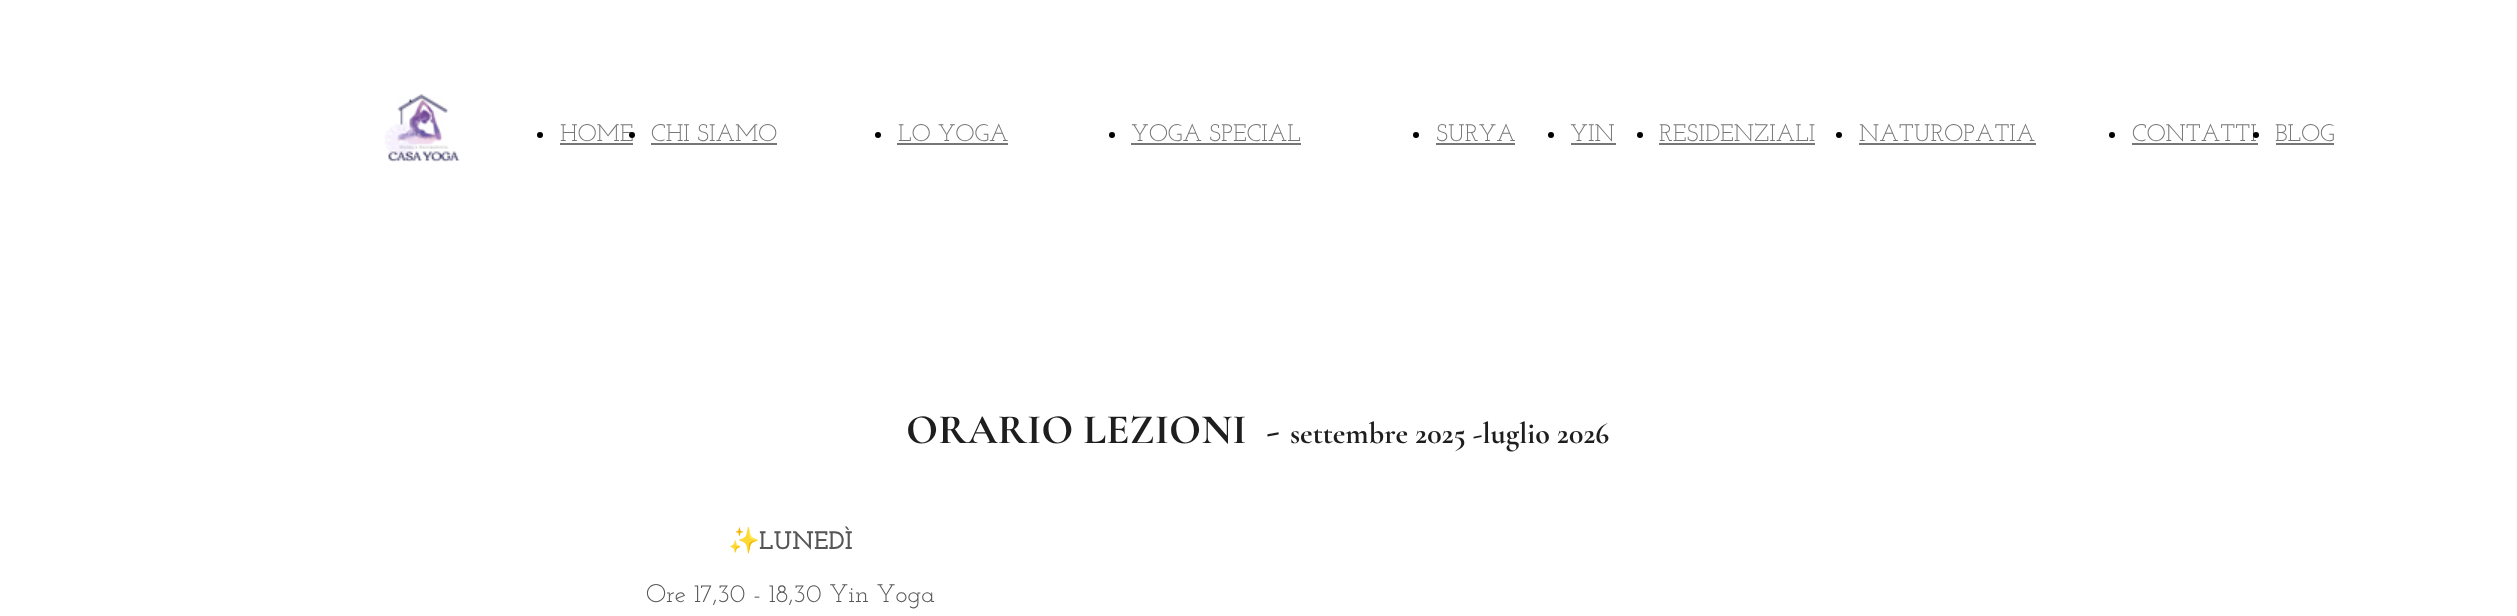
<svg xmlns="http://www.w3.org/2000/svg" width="2517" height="616">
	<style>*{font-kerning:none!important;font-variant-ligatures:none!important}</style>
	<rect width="100%" height="100%" fill="#FFFFFF" />
	<image x="384" y="94" width="76" height="68" href="assets/img1.png" />
	<circle cx="540" cy="135" r="3" fill="#000000" />
	<text x="560" y="141" font-family="Josefin Slab" font-size="24" fill="#777575">HOME</text>
	<rect x="560" y="143" width="73" height="2" fill="#777575" />
	<circle cx="632" cy="135" r="3" fill="#000000" />
	<text x="651" y="141" font-family="Josefin Slab" font-size="24" fill="#777575">CHI SIAMO</text>
	<rect x="651" y="143" width="126" height="2" fill="#777575" />
	<circle cx="878" cy="135" r="3" fill="#000000" />
	<text x="898" y="141" font-family="Josefin Slab" font-size="24" fill="#777575">LO YOGA</text>
	<rect x="897" y="143" width="111" height="2" fill="#777575" />
	<circle cx="1112" cy="135" r="3" fill="#000000" />
	<text x="1131" y="141" font-family="Josefin Slab" font-size="24" fill="#777575">YOGA SPECIAL</text>
	<rect x="1131" y="143" width="170" height="2" fill="#777575" />
	<circle cx="1416" cy="135" r="3" fill="#000000" />
	<text x="1436" y="141" font-family="Josefin Slab" font-size="24" fill="#777575">SURYA</text>
	<rect x="1436" y="143" width="79" height="2" fill="#777575" />
	<circle cx="1551" cy="135" r="3" fill="#000000" />
	<text x="1570" y="141" font-family="Josefin Slab" font-size="24" fill="#777575">YIN</text>
	<rect x="1571" y="143" width="45" height="2" fill="#777575" />
	<circle cx="1640" cy="135" r="3" fill="#000000" />
	<text x="1659" y="141" font-family="Josefin Slab" font-size="24" fill="#777575">RESIDENZIALI</text>
	<rect x="1659" y="143" width="156" height="2" fill="#777575" />
	<circle cx="1839" cy="135" r="3" fill="#000000" />
	<text x="1859" y="141" font-family="Josefin Slab" font-size="24" fill="#777575">NATUROPATIA</text>
	<rect x="1859" y="143" width="177" height="2" fill="#777575" />
	<circle cx="2112" cy="135" r="3" fill="#000000" />
	<text x="2132" y="141" font-family="Josefin Slab" font-size="24" fill="#777575">CONTATTI</text>
	<rect x="2132" y="143" width="126" height="2" fill="#777575" />
	<circle cx="2256" cy="135" r="3" fill="#000000" />
	<text x="2275" y="141" font-family="Josefin Slab" font-size="24" fill="#777575">BLOG</text>
	<rect x="2276" y="143" width="58" height="2" fill="#777575" />
	<text x="906" y="443" font-family="Cormorant Garamond" font-size="42" font-weight="700" fill="#1E1E1E" xml:space="preserve">ORARIO LEZIONI  -</text>
	<text x="1290" y="443" font-family="Cormorant Garamond" font-size="30" font-weight="700" fill="#1E1E1E">settembre 2025 -luglio 2026</text>
	<text x="728" y="549" font-family="Noto Color Emoji" font-size="25.5" font-weight="700" fill="#565656">✨</text>
	<text x="759" y="549" font-family="Josefin Slab" font-size="25.5" font-weight="700" fill="#565656">LUNEDÌ</text>
	<text x="646" y="602" font-family="Josefin Slab" font-size="25.5" fill="#565656">Ore 17,30 - 18,30 Yin Yoga</text>
</svg>
